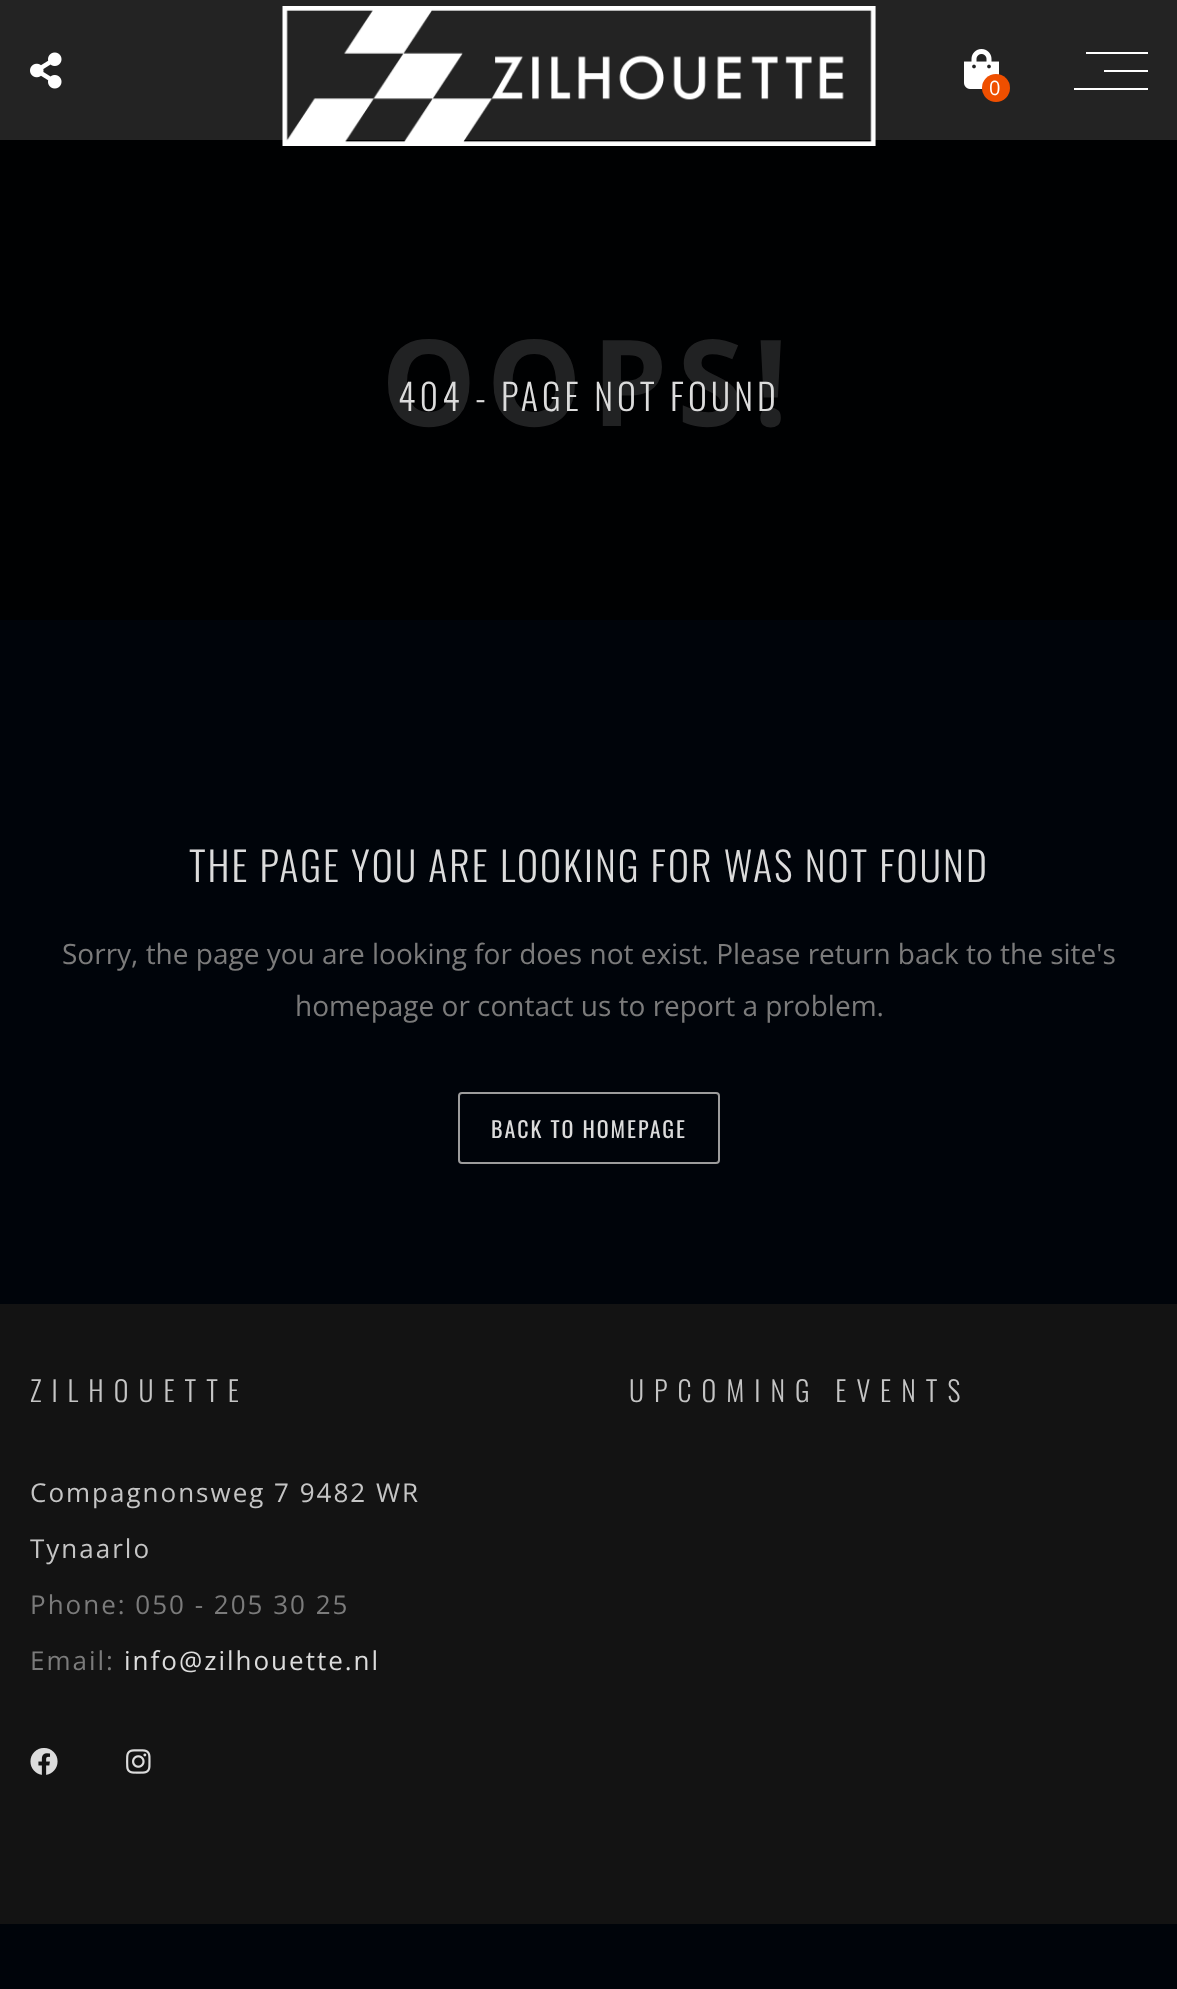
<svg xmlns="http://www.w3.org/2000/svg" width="1177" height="1989">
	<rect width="100%" height="100%" fill="#00040A" />
	<rect x="0" y="0" width="1177" height="140" fill="#232323" />
	<image x="30" y="52" width="32" height="37" href="assets/img1.png" />
	<rect x="0" y="140" width="1177" height="480" fill="#000102" />
	<image x="282" y="6" width="594" height="140" href="assets/img2.png" />
	<image x="964" y="49" width="35" height="40" href="assets/img3.png" />
	<circle cx="996" cy="88" r="14" fill="#EF4F00" />
	<text x="989" y="95" font-family="Open Sans" font-size="20" fill="#FFFFFF">0</text>
	<rect x="1086" y="52" width="62" height="2" fill="#FFFFFF" />
	<rect x="1104" y="70" width="44" height="2" fill="#FFFFFF" />
	<rect x="1074" y="88" width="74" height="2" fill="#FFFFFF" />
	<text x="381" y="426" font-family="Open Sans" font-size="120" font-weight="700" letter-spacing="10" fill="#212223">OOPS!</text>
	<text x="398" y="411" font-family="Oswald" font-size="36" font-weight="300" letter-spacing="4" fill="#DCDCDC">404 - PAGE NOT FOUND</text>
	<text x="189" y="882" font-family="Oswald" font-size="40" font-weight="300" letter-spacing="2" fill="#DCDCDC">THE PAGE YOU ARE LOOKING FOR WAS NOT FOUND</text>
	<g font-family="Open Sans" font-size="28" fill="#7B7B7B">
		<text x="62" y="964">Sorry, the page you are looking for does not exist. Please return back to the site's</text>
		<text x="295" y="1016">homepage or contact us to report a problem.</text>
	</g>
	<rect x="459" y="1093" width="260" height="70" rx="3" fill="none" stroke="#9C9C9C" stroke-width="2" />
	<text x="491" y="1138" font-family="Oswald" font-size="22" letter-spacing="2" fill="#DCDCDC">BACK TO HOMEPAGE</text>
	<rect x="0" y="1304" width="1177" height="620" fill="#131313" />
	<text x="30" y="1402" font-family="Oswald" font-size="28" font-weight="300" letter-spacing="10" fill="#C5C5C5">ZILHOUETTE</text>
	<g font-family="Open Sans" font-size="26" letter-spacing="2" fill="#C5C5C5">
		<text x="30" y="1502">Compagnonsweg 7 9482 WR</text>
		<text x="30" y="1558">Tynaarlo</text>
	</g>
	<g font-family="Open Sans" font-size="26" letter-spacing="2" fill="#7B7B7B">
		<text x="30" y="1614">Phone: 050 - 205 30 25</text>
		<text x="30" y="1670">Email:</text>
	</g>
	<text x="124" y="1670" font-family="Open Sans" font-size="26" letter-spacing="2" fill="#DCDCDC">info@zilhouette.nl</text>
	<image x="30" y="1748" width="28" height="27" href="assets/img4.png" />
	<image x="126" y="1749" width="25" height="25" href="assets/img5.png" />
	<text x="629" y="1402" font-family="Oswald" font-size="28" font-weight="300" letter-spacing="10" fill="#C5C5C5">UPCOMING EVENTS</text>
</svg>
